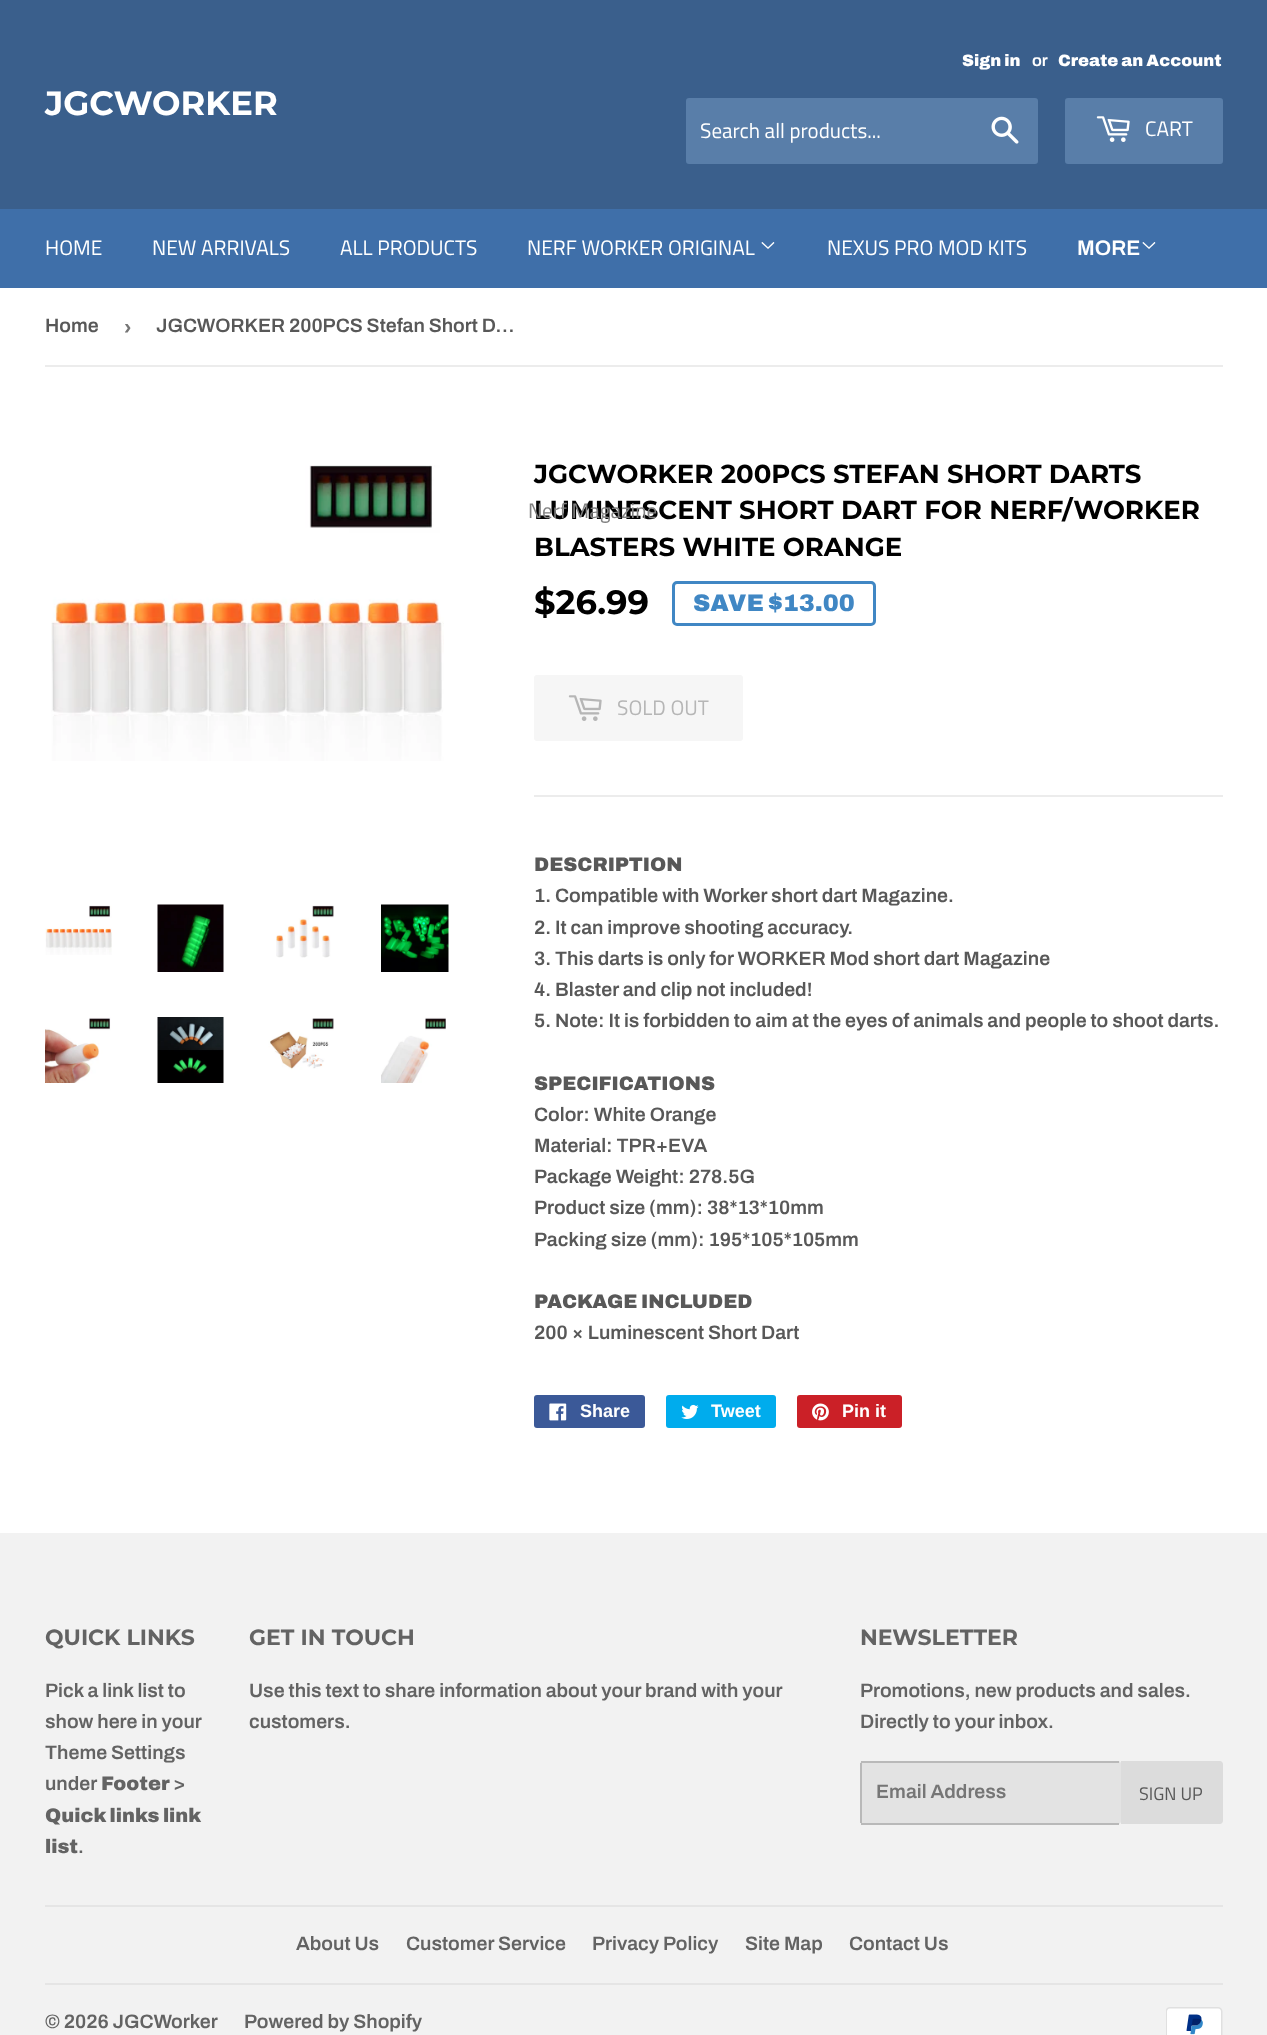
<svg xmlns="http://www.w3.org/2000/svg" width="1267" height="2035">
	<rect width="100%" height="100%" fill="#FFFFFF" />
	<rect x="0" y="0" width="1267" height="209" fill="#3A5F8C" />
	<text x="45" y="115" font-family="Montserrat" font-size="33.75" font-weight="700" fill="#FFFFFF">JGCWORKER</text>
	<text x="962" y="66" font-family="Archivo" font-size="16.5" font-weight="900" fill="#FFFFFF">Sign in</text>
	<text x="1032" y="66" font-family="Archivo" font-size="16.5" font-weight="600" fill="#FFFFFF">or</text>
	<text x="1058" y="66" font-family="Archivo" font-size="16.5" font-weight="900" fill="#FFFFFF">Create an Account</text>
	<rect x="686" y="98" width="352" height="66" rx="3" fill="#597EA9" />
	<text x="700" y="138" font-family="Titillium Web" font-size="21" fill="#FFFFFF">Search all products...</text>
	<image x="991" y="116" width="28" height="28" href="assets/img1.png" />
	<rect x="1065" y="98" width="158" height="66" rx="3" fill="#597EA9" />
	<image x="1096" y="116" width="34" height="26" href="assets/img2.png" />
	<text x="1145" y="136" font-family="Titillium Web" font-size="21" fill="#FFFFFF">CART</text>
	<rect x="0" y="209" width="1267" height="79" fill="#3F6FA9" />
	<g font-family="Titillium Web" font-size="21" fill="#FFFFFF">
		<text x="45" y="255">HOME</text>
		<text x="152" y="255">NEW ARRIVALS</text>
		<text x="340" y="255">ALL PRODUCTS</text>
		<text x="527" y="255">NERF WORKER ORIGINAL</text>
	</g>
	<image x="761" y="242" width="14" height="7" href="assets/img3.png" />
	<text x="534" y="519" font-family="Montserrat" font-size="26" font-weight="700" fill="#000000">LUMINESCENT SHORT DART FOR NERF/WORKER</text>
	<text x="528" y="518" font-family="Titillium Web" font-size="21" fill="#818181">Nerf Magazine</text>
	<text x="827" y="255" font-family="Titillium Web" font-size="21" fill="#FFFFFF">NEXUS PRO MOD KITS</text>
	<text x="1077" y="255" font-family="Archivo" font-size="21" font-weight="600" fill="#FFFFFF">MORE</text>
	<image x="1142" y="242" width="14" height="7" href="assets/img3.png" />
	<rect x="45" y="365" width="1178" height="2" fill="#ECECEC" />
	<text x="45" y="332" font-family="Archivo" font-size="19.5" font-weight="600" fill="#585858">Home</text>
	<text x="124" y="334" font-family="Liberation Sans" font-size="22" font-weight="700" fill="#767676">›</text>
	<text x="156" y="332" font-family="Archivo" font-size="19.5" font-weight="600" fill="#585858">JGCWORKER 200PCS Stefan Short D…</text>
	<image x="51" y="465" width="393" height="296" href="assets/img4.png" />
	<image x="45" y="905" width="67" height="50" href="assets/img5.png" />
	<image x="157" y="904" width="67" height="68" href="assets/img6.png" />
	<image x="276" y="905" width="58" height="53" href="assets/img7.png" />
	<image x="381" y="904" width="68" height="68" href="assets/img8.png" />
	<image x="45" y="1017" width="66" height="66" href="assets/img9.png" />
	<image x="157" y="1017" width="67" height="66" href="assets/img10.png" />
	<image x="268" y="1018" width="66" height="52" href="assets/img11.png" />
	<image x="381" y="1017" width="65" height="66" href="assets/img12.png" />
	<g font-family="Montserrat" font-size="26" font-weight="700" fill="#000000">
		<text x="534" y="483">JGCWORKER 200PCS STEFAN SHORT DARTS</text>
		<text x="534" y="556">BLASTERS WHITE ORANGE</text>
	</g>
	<text x="534" y="614" font-family="Montserrat" font-size="33.75" font-weight="700" fill="#000000">$26.99</text>
	<rect x="673.5" y="582.5" width="201" height="42" rx="3.5" fill="none" stroke="#4087C4" stroke-width="3" />
	<text x="693" y="611" font-family="Archivo" font-size="24" font-weight="900" fill="#4087C4">SAVE $13.00</text>
	<rect x="534" y="675" width="209" height="66" rx="3" fill="#F6F6F6" />
	<image x="568" y="695" width="34" height="26" href="assets/img13.png" />
	<text x="617" y="715" font-family="Titillium Web" font-size="21" fill="#B6B6B6">SOLD OUT</text>
	<rect x="534" y="795" width="689" height="2" fill="#ECECEC" />
	<text x="534" y="871" font-family="Archivo" font-size="19.5" font-weight="900" fill="#585858">DESCRIPTION</text>
	<g font-family="Archivo" font-size="19.5" font-weight="600" fill="#585858">
		<text x="534" y="902">1. Compatible with Worker short dart Magazine.</text>
		<text x="534" y="934">2. It can improve shooting accuracy.</text>
		<text x="534" y="965">3. This darts is only for WORKER Mod short dart Magazine</text>
		<text x="534" y="996">4. Blaster and clip not included!</text>
		<text x="534" y="1027">5. Note: It is forbidden to aim at the eyes of animals and people to shoot darts.</text>
	</g>
	<text x="534" y="1090" font-family="Archivo" font-size="19.5" font-weight="900" fill="#585858">SPECIFICATIONS</text>
	<g font-family="Archivo" font-size="19.5" font-weight="600" fill="#585858">
		<text x="534" y="1121">Color: White Orange</text>
		<text x="534" y="1152">Material: TPR+EVA</text>
		<text x="534" y="1183">Package Weight: 278.5G</text>
		<text x="534" y="1214">Product size (mm): 38*13*10mm</text>
		<text x="534" y="1246">Packing size (mm): 195*105*105mm</text>
	</g>
	<text x="534" y="1308" font-family="Archivo" font-size="19.5" font-weight="900" fill="#585858">PACKAGE INCLUDED</text>
	<text x="534" y="1339" font-family="Archivo" font-size="19.5" font-weight="600" fill="#585858">200 × Luminescent Short Dart</text>
	<rect x="534" y="1395" width="111" height="33" rx="3" fill="#3B5998" />
	<image x="549" y="1403" width="18" height="18" href="assets/img14.png" />
	<text x="580" y="1417" font-family="Liberation Sans" font-size="18" font-weight="700" fill="#FFFFFF">Share</text>
	<rect x="666" y="1395" width="110" height="33" rx="3" fill="#00ACED" />
	<image x="681" y="1404" width="18" height="15" href="assets/img15.png" />
	<text x="711" y="1417" font-family="Liberation Sans" font-size="18" font-weight="700" fill="#FFFFFF">Tweet</text>
	<rect x="797" y="1395" width="105" height="33" rx="3" fill="#CB2027" />
	<image x="812" y="1403" width="17" height="18" href="assets/img16.png" />
	<text x="842" y="1417" font-family="Liberation Sans" font-size="18" font-weight="700" fill="#FFFFFF">Pin it</text>
	<rect x="0" y="1533" width="1267" height="502" fill="#F2F2F2" />
	<text x="45" y="1645" font-family="Montserrat" font-size="22" font-weight="700" fill="#636363">QUICK LINKS</text>
	<g font-family="Archivo" font-size="19.5" font-weight="600" fill="#636363">
		<text x="45" y="1697">Pick a link list to</text>
		<text x="45" y="1728">show here in your</text>
		<text x="45" y="1759">Theme Settings</text>
		<text x="45" y="1790">under</text>
	</g>
	<text x="101" y="1790" font-family="Archivo" font-size="19.5" font-weight="900" fill="#636363">Footer</text>
	<text x="173" y="1790" font-family="Archivo" font-size="19.5" font-weight="600" fill="#636363">&gt;</text>
	<g font-family="Archivo" font-size="19.5" font-weight="900" fill="#636363">
		<text x="45" y="1822">Quick links link</text>
		<text x="45" y="1853">list</text>
	</g>
	<text x="78" y="1853" font-family="Archivo" font-size="19.5" font-weight="600" fill="#636363">.</text>
	<text x="249" y="1645" font-family="Montserrat" font-size="22" font-weight="700" fill="#636363">GET IN TOUCH</text>
	<g font-family="Archivo" font-size="19.5" font-weight="600" fill="#636363">
		<text x="249" y="1697">Use this text to share information about your brand with your</text>
		<text x="249" y="1728">customers.</text>
	</g>
	<text x="860" y="1645" font-family="Montserrat" font-size="22" font-weight="700" fill="#636363">NEWSLETTER</text>
	<g font-family="Archivo" font-size="19.5" font-weight="600" fill="#636363">
		<text x="860" y="1697">Promotions, new products and sales.</text>
		<text x="860" y="1728">Directly to your inbox.</text>
	</g>
	<rect x="860" y="1761" width="261" height="63" rx="3" fill="#E3E3E3" />
	<rect x="861" y="1761" width="258" height="2" fill="#B9B9B9" />
	<rect x="861" y="1823" width="258" height="2" fill="#B9B9B9" />
	<rect x="860" y="1763" width="2" height="60" fill="#B9B9B9" />
	<text x="876" y="1798" font-family="Archivo" font-size="19.5" font-weight="600" fill="#767676">Email Address</text>
	<path d="M1121 1761H1220C1221.5 1761 1223 1762.5 1223 1764V1821C1223 1822.5 1221.5 1824 1220 1824H1121Z" fill="#DCDCDC" />
	<text x="1139" y="1800" font-family="Titillium Web" font-size="18" fill="#585858">SIGN UP</text>
	<rect x="45" y="1905" width="1178" height="2" fill="#E5E5E5" />
	<g font-family="Archivo" font-size="19.5" font-weight="600" fill="#636363">
		<text x="296" y="1950">About Us</text>
		<text x="406" y="1950">Customer Service</text>
		<text x="592" y="1950">Privacy Policy</text>
		<text x="745" y="1950">Site Map</text>
		<text x="849" y="1950">Contact Us</text>
	</g>
	<rect x="45" y="1983" width="1178" height="2" fill="#E5E5E5" />
	<g font-family="Archivo" font-size="19.5" font-weight="600" fill="#636363">
		<text x="45" y="2028">© 2026 JGCWorker</text>
		<text x="244" y="2028">Powered by Shopify</text>
	</g>
	<image x="1166" y="2007" width="57" height="28" href="assets/img17.png" />
</svg>
